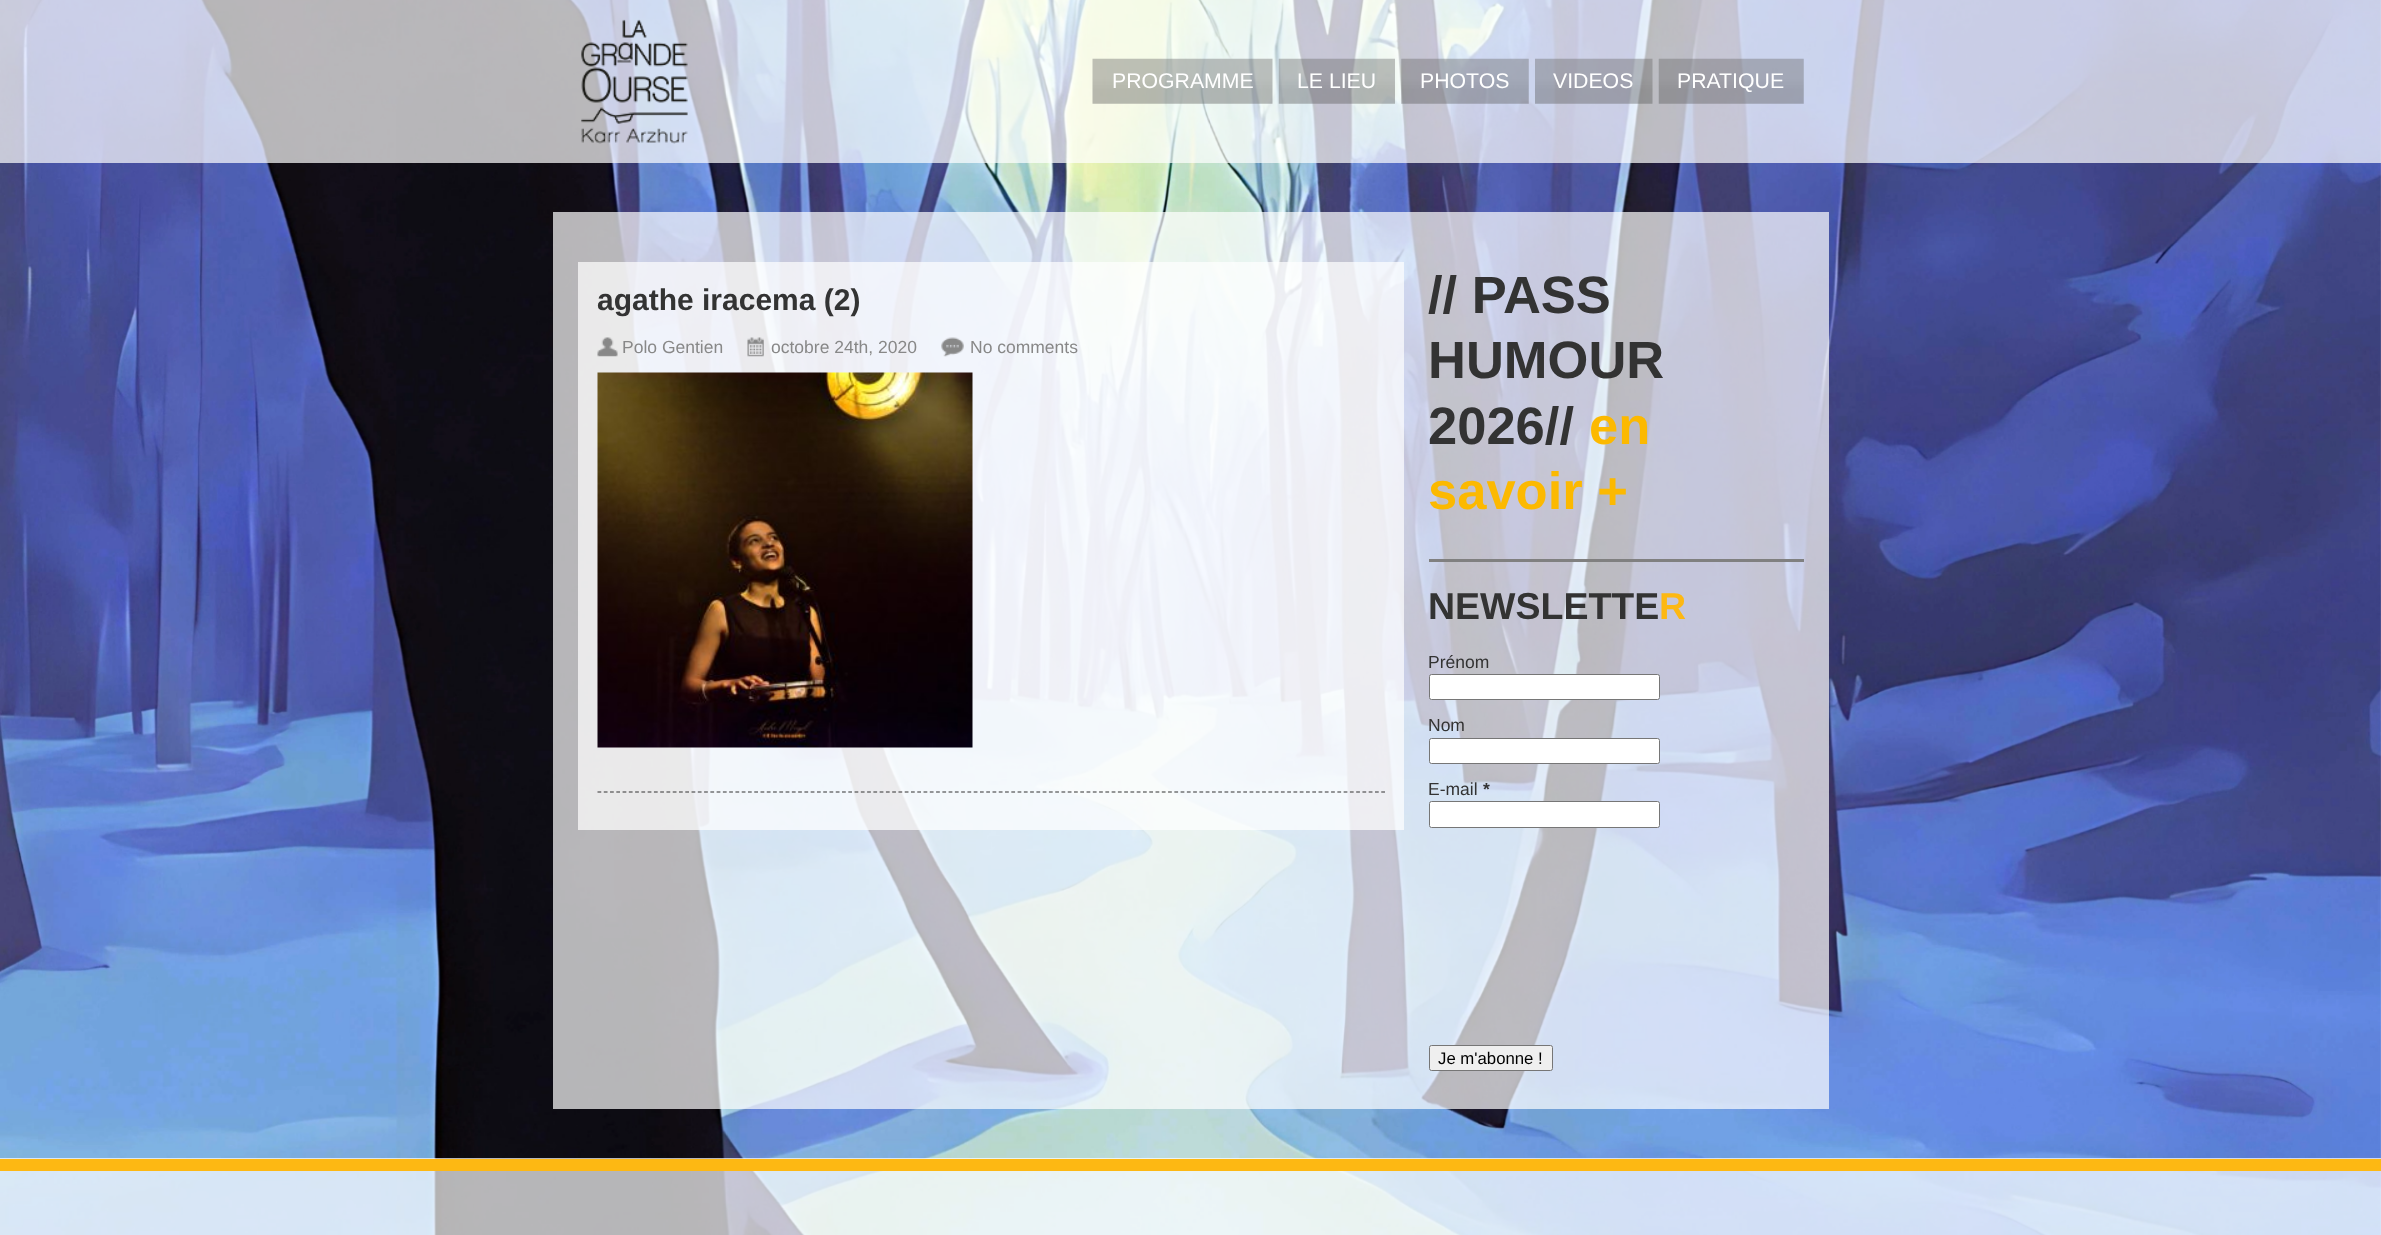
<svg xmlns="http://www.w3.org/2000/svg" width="2381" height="1235">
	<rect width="100%" height="100%" fill="#FFFFFF" />
	<image x="0" y="0" width="2381" height="1235" href="assets/img1.png" />
	<rect x="0" y="0" width="2381" height="163" fill="#FFFFFF" fill-opacity="0.7" />
	<image x="581" y="19" width="107" height="125" href="assets/img2.png" />
	<image x="1092" y="58" width="181" height="46" href="assets/img3.png" />
	<text x="1112" y="88" font-family="Liberation Sans" font-size="21.25" fill="#FFFFFF">PROGRAMME</text>
	<image x="1278" y="58" width="117" height="46" href="assets/img4.png" />
	<text x="1297" y="88" font-family="Liberation Sans" font-size="21.25" fill="#FFFFFF">LE LIEU</text>
	<image x="1401" y="58" width="128" height="46" href="assets/img5.png" />
	<text x="1420" y="88" font-family="Liberation Sans" font-size="21.25" fill="#FFFFFF">PHOTOS</text>
	<image x="1535" y="58" width="118" height="46" href="assets/img6.png" />
	<text x="1553" y="88" font-family="Liberation Sans" font-size="21.25" fill="#FFFFFF">VIDEOS</text>
	<image x="1658" y="58" width="146" height="46" href="assets/img7.png" />
	<text x="1677" y="88" font-family="Liberation Sans" font-size="21.25" fill="#FFFFFF">PRATIQUE</text>
	<rect x="553" y="212" width="1276" height="897" fill="#FFFFFF" fill-opacity="0.7" />
	<rect x="578" y="262" width="826" height="568" fill="#FFFFFF" fill-opacity="0.7" />
	<text x="597" y="310" font-family="Liberation Sans" font-size="30" font-weight="700" fill="#333333">agathe iracema (2)</text>
	<image x="597" y="337" width="21" height="20" href="assets/img8.png" />
	<text x="622" y="353" font-family="Liberation Sans" font-size="17.5" fill="#888888">Polo Gentien</text>
	<image x="747" y="337" width="17" height="20" href="assets/img9.png" />
	<text x="771" y="353" font-family="Liberation Sans" font-size="17.5" fill="#888888">octobre 24th, 2020</text>
	<image x="941" y="337" width="23" height="20" href="assets/img10.png" />
	<text x="970" y="353" font-family="Liberation Sans" font-size="17.5" fill="#888888">No comments</text>
	<image x="597" y="372" width="376" height="376" href="assets/img11.png" />
	<path d="M597.5 792H1385" fill="none" stroke="#333333" stroke-width="1.2" stroke-dasharray="3.75 2.52" />
	<g font-family="Liberation Sans" font-size="52.5" font-weight="700" fill="#333333">
		<text x="1428" y="313">// PASS</text>
		<text x="1428" y="378">HUMOUR</text>
		<text x="1428" y="444">2026//</text>
	</g>
	<g font-family="Liberation Sans" font-size="52.5" font-weight="700" fill="#FCB900">
		<text x="1589" y="444">en</text>
		<text x="1428" y="509">savoir +</text>
	</g>
	<rect x="1429" y="559" width="375" height="3" fill="#808080" />
	<text x="1428" y="619" font-family="Liberation Sans" font-size="37.5" font-weight="700" fill="#333333">NEWSLETTE</text>
	<text x="1659" y="619" font-family="Liberation Sans" font-size="37.5" font-weight="700" fill="#FDB813">R</text>
	<text x="1428" y="668" font-family="Liberation Sans" font-size="17.5" fill="#333333">Prénom</text>
	<rect x="1429.5" y="674.5" width="230" height="25" rx="2" fill="#FFFFFF" stroke="#767676" />
	<text x="1428" y="731" font-family="Liberation Sans" font-size="17.5" fill="#333333">Nom</text>
	<rect x="1429.5" y="738.5" width="230" height="25" rx="2" fill="#FFFFFF" stroke="#767676" />
	<text x="1428" y="795" font-family="Liberation Sans" font-size="17.5" fill="#333333">E-mail</text>
	<text x="1483" y="795" font-family="Liberation Sans" font-size="17.5" font-weight="700" fill="#333333">*</text>
	<rect x="1429.5" y="801.5" width="230" height="26" rx="2" fill="#FFFFFF" stroke="#767676" />
	<rect x="1429.5" y="1045.5" width="123" height="25" rx="2" fill="#EFEFEF" stroke="#767676" />
	<text x="1438" y="1064" font-family="Liberation Sans" font-size="16.75" fill="#000000">Je m'abonne !</text>
	<rect x="0" y="1158" width="2381" height="77" fill="#FFFFFF" fill-opacity="0.7" />
	<rect x="0" y="1159" width="2381" height="12" fill="#FDB813" />
</svg>
